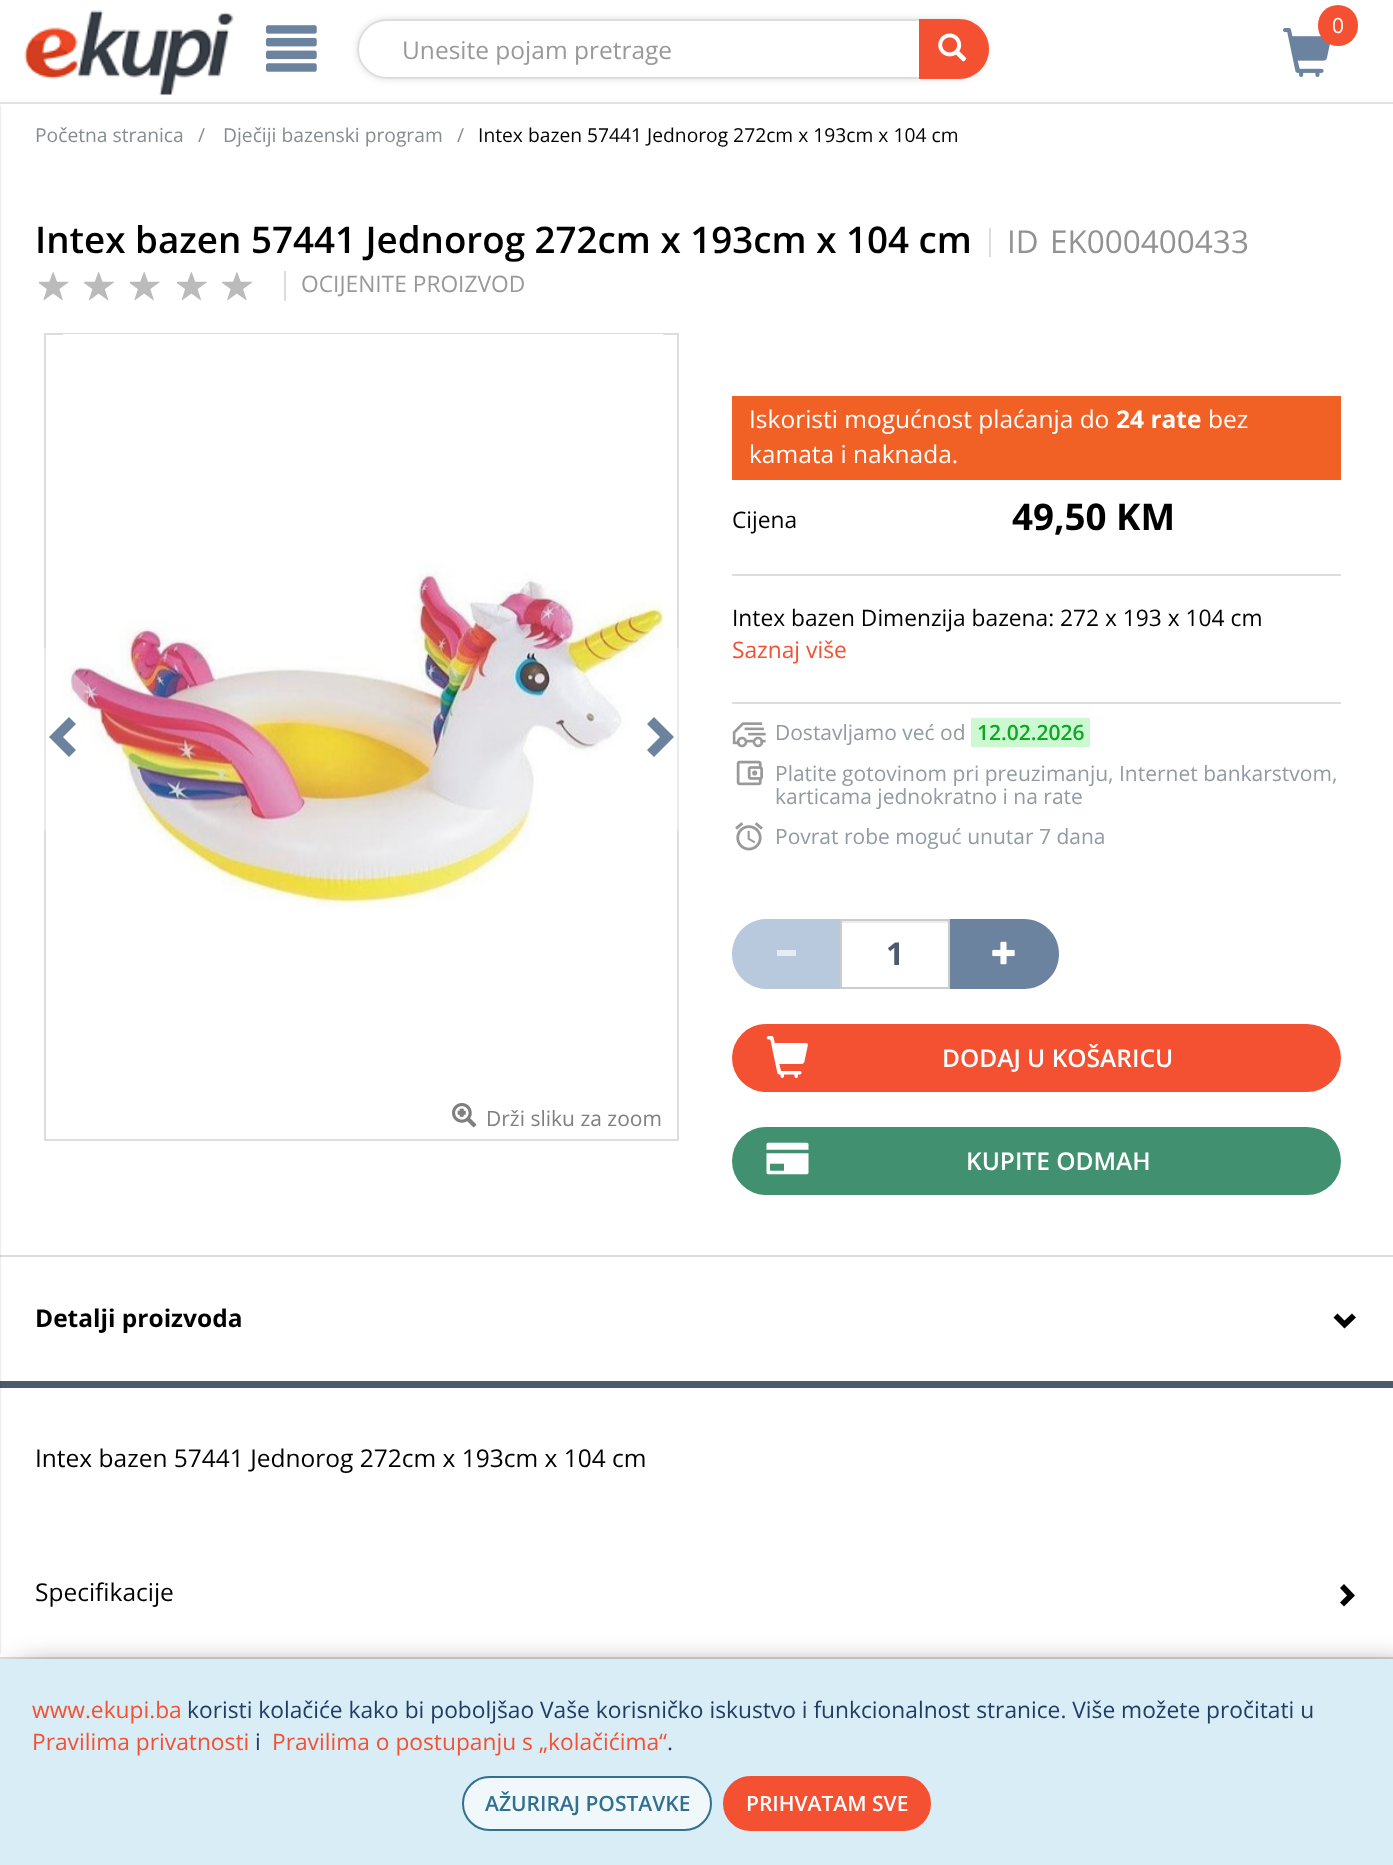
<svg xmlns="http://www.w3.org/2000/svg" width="1393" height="1865">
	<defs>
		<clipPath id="clip1"><rect x="44" y="628" width="44" height="219" /></clipPath>
		<clipPath id="clip2"><rect x="635" y="628" width="44" height="219" /></clipPath>
	</defs>
	<rect width="100%" height="100%" fill="#FFFFFF" />
	<image x="24" y="10" width="210" height="85" href="assets/img1.png" />
	<rect x="0" y="102" width="1393" height="2" fill="#E2E2E2" />
	<image x="1283" y="28" width="47" height="49" href="assets/img2.png" />
	<rect x="1318" y="5" width="40" height="41" rx="20" fill="#F35132" />
	<text x="1332" y="33" font-family="Open Sans" font-size="21" fill="#FFFFFF">0</text>
	<image x="266" y="25" width="51" height="47" href="assets/img3.png" />
	<rect x="357" y="19" width="630" height="60" rx="30" fill="#000000" fill-opacity="0.12" filter="blur(3.5px)" />
	<rect x="357" y="19" width="630" height="60" rx="30" fill="#FFFFFF" />
	<path d="M387 20H920V78H387C371 78 358 65 358 49C358 33 371 20 387 20Z" fill="none" stroke="#DEDEDE" stroke-width="2" />
	<text x="402" y="59" font-family="Open Sans" font-size="24.5" fill="#999999">Unesite pojam pretrage</text>
	<path d="M919 19H959C975.5 19 989 32.5 989 49C989 65.5 975.5 79 959 79H919Z" fill="#F35132" />
	<image x="938" y="33" width="29" height="29" href="assets/img4.png" />
	<rect x="0" y="1255" width="1393" height="2" fill="#DDDDDD" />
	<rect x="0" y="1381" width="1393" height="7" fill="#4B5A6D" />
	<rect x="0" y="1657" width="1393" height="2" fill="#DDDDDD" />
	<rect x="-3" y="105" width="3" height="1549" fill="#000000" fill-opacity="0.2" filter="blur(1px)" />
	<g font-family="Open Sans" font-size="19.25" fill="#868C91">
		<text x="35" y="142">Početna stranica</text>
		<text x="198" y="142">/</text>
		<text x="223" y="142">Dječiji bazenski program</text>
		<text x="457" y="142">/</text>
	</g>
	<text x="478" y="142" font-family="Open Sans" font-size="19.25" fill="#000000">Intex bazen 57441 Jednorog 272cm x 193cm x 104 cm</text>
	<text x="35" y="253" font-family="Open Sans" font-size="36.75" font-weight="600" fill="#000000">Intex bazen 57441 Jednorog 272cm x 193cm x 104 cm</text>
	<rect x="989" y="228" width="2" height="29" fill="#DDDDDD" />
	<g font-family="Open Sans" font-size="31.5" fill="#929292">
		<text x="1007" y="253">ID</text>
		<text x="1050" y="253">EK000400433</text>
	</g>
	<image x="39" y="272" width="30" height="29" href="assets/img5.png" />
	<image x="84" y="272" width="30" height="29" href="assets/img6.png" />
	<image x="130" y="272" width="30" height="29" href="assets/img5.png" />
	<image x="177" y="272" width="30" height="29" href="assets/img7.png" />
	<image x="222" y="272" width="31" height="29" href="assets/img8.png" />
	<rect x="284" y="271" width="2" height="30" fill="#DDDDDD" />
	<text x="301" y="292" font-family="Open Sans" font-size="22.75" fill="#999999">OCIJENITE PROIZVOD</text>
	<rect x="45" y="334" width="633" height="806" fill="none" stroke="#DDDDDD" stroke-width="2" />
	<rect x="63" y="334" width="600" height="1" fill="#FFFFFF" />
	<image x="63" y="563" width="600" height="345" href="assets/img9.png" />
	<g clip-path="url(#clip1)">
		<path d="M131 729V652C131 648 134 646 137 649L209 719C211 721 226 731 226 739C226 747 211 758 209 760L137 830C134 833 131 831 131 827V750L49 830C47 832 44 831 44 828V651C44 647 47 646 49 649Z" fill="#FFFFFF" fill-opacity="0.4" />
	</g>
	<path d="M76 724L63 737L76 750L69 757L49 737L69 717Z" fill="#6C83A0" />
	<g clip-path="url(#clip2)">
		<path d="M679 652V829L678 831C674 834 662 819 659 816L592 750V827C591 831 589 833 586 830L513 760C512 758 496 747 496 739C496 731 512 721 513 719L586 649C589 646 591 648 592 652V729L659 662C668 654 679 640 679 652Z" fill="#FFFFFF" fill-opacity="0.4" />
	</g>
	<path d="M674 737L654 757L647 750L660 737L647 724L654 717Z" fill="#6C83A0" />
	<image x="452" y="1103" width="25" height="25" href="assets/img10.png" />
	<text x="486" y="1126" font-family="Open Sans" font-size="21" fill="#808080">Drži sliku za zoom</text>
	<rect x="732" y="396" width="609" height="84" fill="#F16025" />
	<text x="749" y="428" font-family="Open Sans" font-size="24.5" fill="#FFFFFF">Iskoristi mogućnost plaćanja do</text>
	<text x="1116" y="428" font-family="Open Sans" font-size="24.5" font-weight="700" fill="#FFFFFF">24 rate</text>
	<g font-family="Open Sans" font-size="24.5" fill="#FFFFFF">
		<text x="1208" y="428">bez</text>
		<text x="749" y="463">kamata i naknada.</text>
	</g>
	<rect x="732" y="574" width="609" height="2" fill="#DDDDDD" />
	<text x="732" y="528" font-family="Open Sans" font-size="22.75" fill="#000000">Cijena</text>
	<text x="1012" y="530" font-family="Open Sans" font-size="36.75" font-weight="700" fill="#000000">49,50 KM</text>
	<rect x="732" y="702" width="609" height="2" fill="#DDDDDD" />
	<text x="732" y="626" font-family="Open Sans" font-size="22.75" fill="#000000">Intex bazen Dimenzija bazena: 272 x 193 x 104 cm</text>
	<text x="732" y="658" font-family="Open Sans" font-size="22.75" fill="#F35132">Saznaj više</text>
	<image x="732" y="722" width="34" height="26" href="assets/img11.png" />
	<text x="775" y="740" font-family="Open Sans" font-size="21" fill="#929BA4">Dostavljamo već od</text>
	<rect x="971" y="718" width="119" height="29" fill="#CCF9D1" />
	<text x="977" y="740" font-family="Open Sans" font-size="21" font-weight="600" fill="#0DA822">12.02.2026</text>
	<image x="736" y="760" width="27" height="26" href="assets/img12.png" />
	<g font-family="Open Sans" font-size="21" fill="#929BA4">
		<text x="775" y="781">Platite gotovinom pri preuzimanju, Internet bankarstvom,</text>
		<text x="775" y="804">karticama jednokratno i na rate</text>
	</g>
	<image x="735" y="822" width="28" height="29" href="assets/img13.png" />
	<text x="775" y="844" font-family="Open Sans" font-size="21" fill="#929BA4">Povrat robe moguć unutar 7 dana</text>
	<path d="M767 919H840V989H767C747.5 989 732 973.5 732 954C732 934.5 747.5 919 767 919Z" fill="#B8C8DD" />
	<rect x="777" y="950" width="19" height="6" fill="#E6ECF3" />
	<rect x="842" y="921" width="107" height="2" fill="#ECECEC" />
	<rect x="841" y="920" width="108" height="68" fill="none" stroke="#CCCCCC" stroke-width="2" />
	<text x="886" y="965" font-family="Open Sans" font-size="31.5" font-weight="700" fill="#4B5A6D">1</text>
	<path d="M950 919H1024C1043.5 919 1059 934.5 1059 954C1059 973.5 1043.5 989 1024 989H950Z" fill="#6C83A0" />
	<image x="992" y="941" width="23" height="24" href="assets/img14.png" />
	<rect x="732" y="1024" width="609" height="68" rx="34" fill="#F35132" />
	<image x="766" y="1036" width="42" height="42" href="assets/img15.png" />
	<text x="942" y="1067" font-family="Open Sans" font-size="24.5" font-weight="600" fill="#FFFFFF">DODAJ U KOŠARICU</text>
	<rect x="732" y="1127" width="609" height="68" rx="34" fill="#419171" />
	<image x="766" y="1142" width="43" height="33" href="assets/img16.png" />
	<text x="966" y="1170" font-family="Open Sans" font-size="24.5" font-weight="600" fill="#FFFFFF">KUPITE ODMAH</text>
	<text x="35" y="1327" font-family="Open Sans" font-size="24.5" font-weight="700" fill="#000000">Detalji proizvoda</text>
	<path d="M1356 1317.5L1344.5 1328.5L1333.5 1317.5L1337.5 1313.5L1344.5 1320.5L1352 1313.5Z" fill="#000000" />
	<g font-family="Open Sans" font-size="24.5" fill="#000000">
		<text x="35" y="1467">Intex bazen 57441 Jednorog 272cm x 193cm x 104 cm</text>
		<text x="35" y="1601">Specifikacije</text>
	</g>
	<path d="M1355 1595.5L1344 1606.5L1340 1602.5L1347 1595.5L1340 1588L1344 1584Z" fill="#000000" />
	<rect x="18" y="1677" width="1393" height="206" fill="#000000" filter="blur(17.5px)" />
	<rect x="0" y="1659" width="1393" height="206" fill="#D9EDF7" />
	<text x="32" y="1718" font-family="Open Sans" font-size="22.75" fill="#F35132">www.ekupi.ba</text>
	<text x="187" y="1718" font-family="Open Sans" font-size="22.75" fill="#233C63">koristi kolačiće kako bi poboljšao Vaše korisničko iskustvo i funkcionalnost stranice. Više možete pročitati u</text>
	<text x="32" y="1750" font-family="Open Sans" font-size="22.75" fill="#F35132">Pravilima privatnosti</text>
	<text x="255" y="1750" font-family="Open Sans" font-size="22.75" fill="#233C63">i</text>
	<text x="272" y="1750" font-family="Open Sans" font-size="22.75" fill="#F35132">Pravilima o postupanju s „kolačićima“</text>
	<text x="667" y="1750" font-family="Open Sans" font-size="22.75" fill="#233C63">.</text>
	<rect x="463" y="1777" width="248" height="53" rx="26.5" fill="#F0F8FC" stroke="#31708F" stroke-width="2" />
	<text x="485" y="1811" font-family="Open Sans" font-size="21" font-weight="600" fill="#31708F">AŽURIRAJ POSTAVKE</text>
	<rect x="724" y="1777" width="206" height="53" rx="26.5" fill="#F35132" stroke="#F35132" stroke-width="2" />
	<text x="746" y="1811" font-family="Open Sans" font-size="21" font-weight="600" fill="#FFFFFF">PRIHVATAM SVE</text>
</svg>
